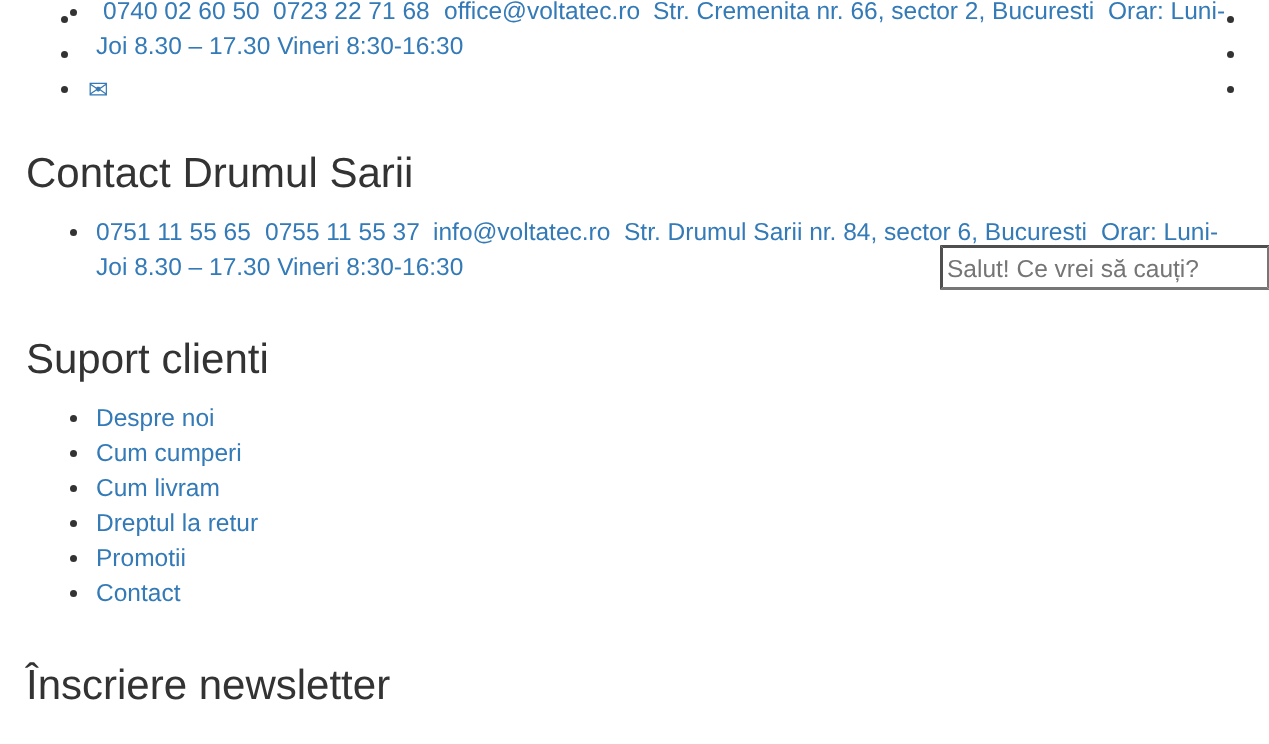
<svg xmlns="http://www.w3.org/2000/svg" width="1269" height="744">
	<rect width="100%" height="100%" fill="#FFFFFF" />
	<circle cx="73.5" cy="12.5" r="3.5" fill="#333333" />
	<g font-family="Liberation Sans" font-size="24.5" fill="#337AB7">
		<text x="103" y="19">0740 02 60 50</text>
		<text x="273" y="19">0723 22 71 68</text>
		<text x="444" y="19">office@voltatec.ro</text>
		<text x="653" y="19">Str. Cremenita nr. 66, sector 2, Bucuresti</text>
		<text x="1108" y="19">Orar: Luni-</text>
		<text x="96" y="54">Joi 8.30 – 17.30 Vineri 8:30-16:30</text>
	</g>
	<text x="26" y="187" font-family="Liberation Sans" font-size="42" fill="#333333">Contact Drumul Sarii</text>
	<circle cx="73.5" cy="232.5" r="3.5" fill="#333333" />
	<g font-family="Liberation Sans" font-size="24.5" fill="#337AB7">
		<text x="96" y="240">0751 11 55 65</text>
		<text x="265" y="240">0755 11 55 37</text>
		<text x="433" y="240">info@voltatec.ro</text>
		<text x="624" y="240">Str. Drumul Sarii nr. 84, sector 6, Bucuresti</text>
		<text x="1101" y="240">Orar: Luni-</text>
		<text x="96" y="275">Joi 8.30 – 17.30 Vineri 8:30-16:30</text>
	</g>
	<text x="26" y="373" font-family="Liberation Sans" font-size="42" fill="#333333">Suport clienti</text>
	<circle cx="73.5" cy="418.5" r="3.5" fill="#333333" />
	<text x="96" y="426" font-family="Liberation Sans" font-size="24.5" fill="#337AB7">Despre noi</text>
	<circle cx="73.5" cy="453.5" r="3.5" fill="#333333" />
	<text x="96" y="461" font-family="Liberation Sans" font-size="24.5" fill="#337AB7">Cum cumperi</text>
	<circle cx="73.5" cy="488.5" r="3.5" fill="#333333" />
	<text x="96" y="496" font-family="Liberation Sans" font-size="24.5" fill="#337AB7">Cum livram</text>
	<circle cx="73.5" cy="523.5" r="3.5" fill="#333333" />
	<text x="96" y="531" font-family="Liberation Sans" font-size="24.5" fill="#337AB7">Dreptul la retur</text>
	<circle cx="73.5" cy="558.5" r="3.5" fill="#333333" />
	<text x="96" y="566" font-family="Liberation Sans" font-size="24.5" fill="#337AB7">Promotii</text>
	<circle cx="73.5" cy="593.5" r="3.5" fill="#333333" />
	<text x="96" y="601" font-family="Liberation Sans" font-size="24.5" fill="#337AB7">Contact</text>
	<text x="26" y="699" font-family="Liberation Sans" font-size="42" fill="#333333">Înscriere newsletter</text>
	<circle cx="64.5" cy="19.5" r="3.5" fill="#333333" />
	<circle cx="64.5" cy="54.5" r="3.5" fill="#333333" />
	<circle cx="64.5" cy="89.5" r="3.5" fill="#333333" />
	<text x="88" y="98" font-family="DejaVu Sans" font-size="24.5" fill="#337AB7">✉</text>
	<circle cx="1230.5" cy="19.5" r="3.5" fill="#333333" />
	<circle cx="1230.5" cy="54.5" r="3.5" fill="#333333" />
	<circle cx="1230.5" cy="89.5" r="3.5" fill="#333333" />
	<path d="M940 245H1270L1267 248H943Z" fill="#4F4F4F" />
	<path d="M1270 245V290L1267 287V248Z" fill="#767676" />
	<path d="M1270 290H940L943 287H1267Z" fill="#767676" />
	<path d="M940 290V245L943 248V287Z" fill="#4F4F4F" />
	<text x="947" y="277" font-family="Liberation Sans" font-size="24.5" fill="#757575">Salut! Ce vrei să cauți?</text>
</svg>
